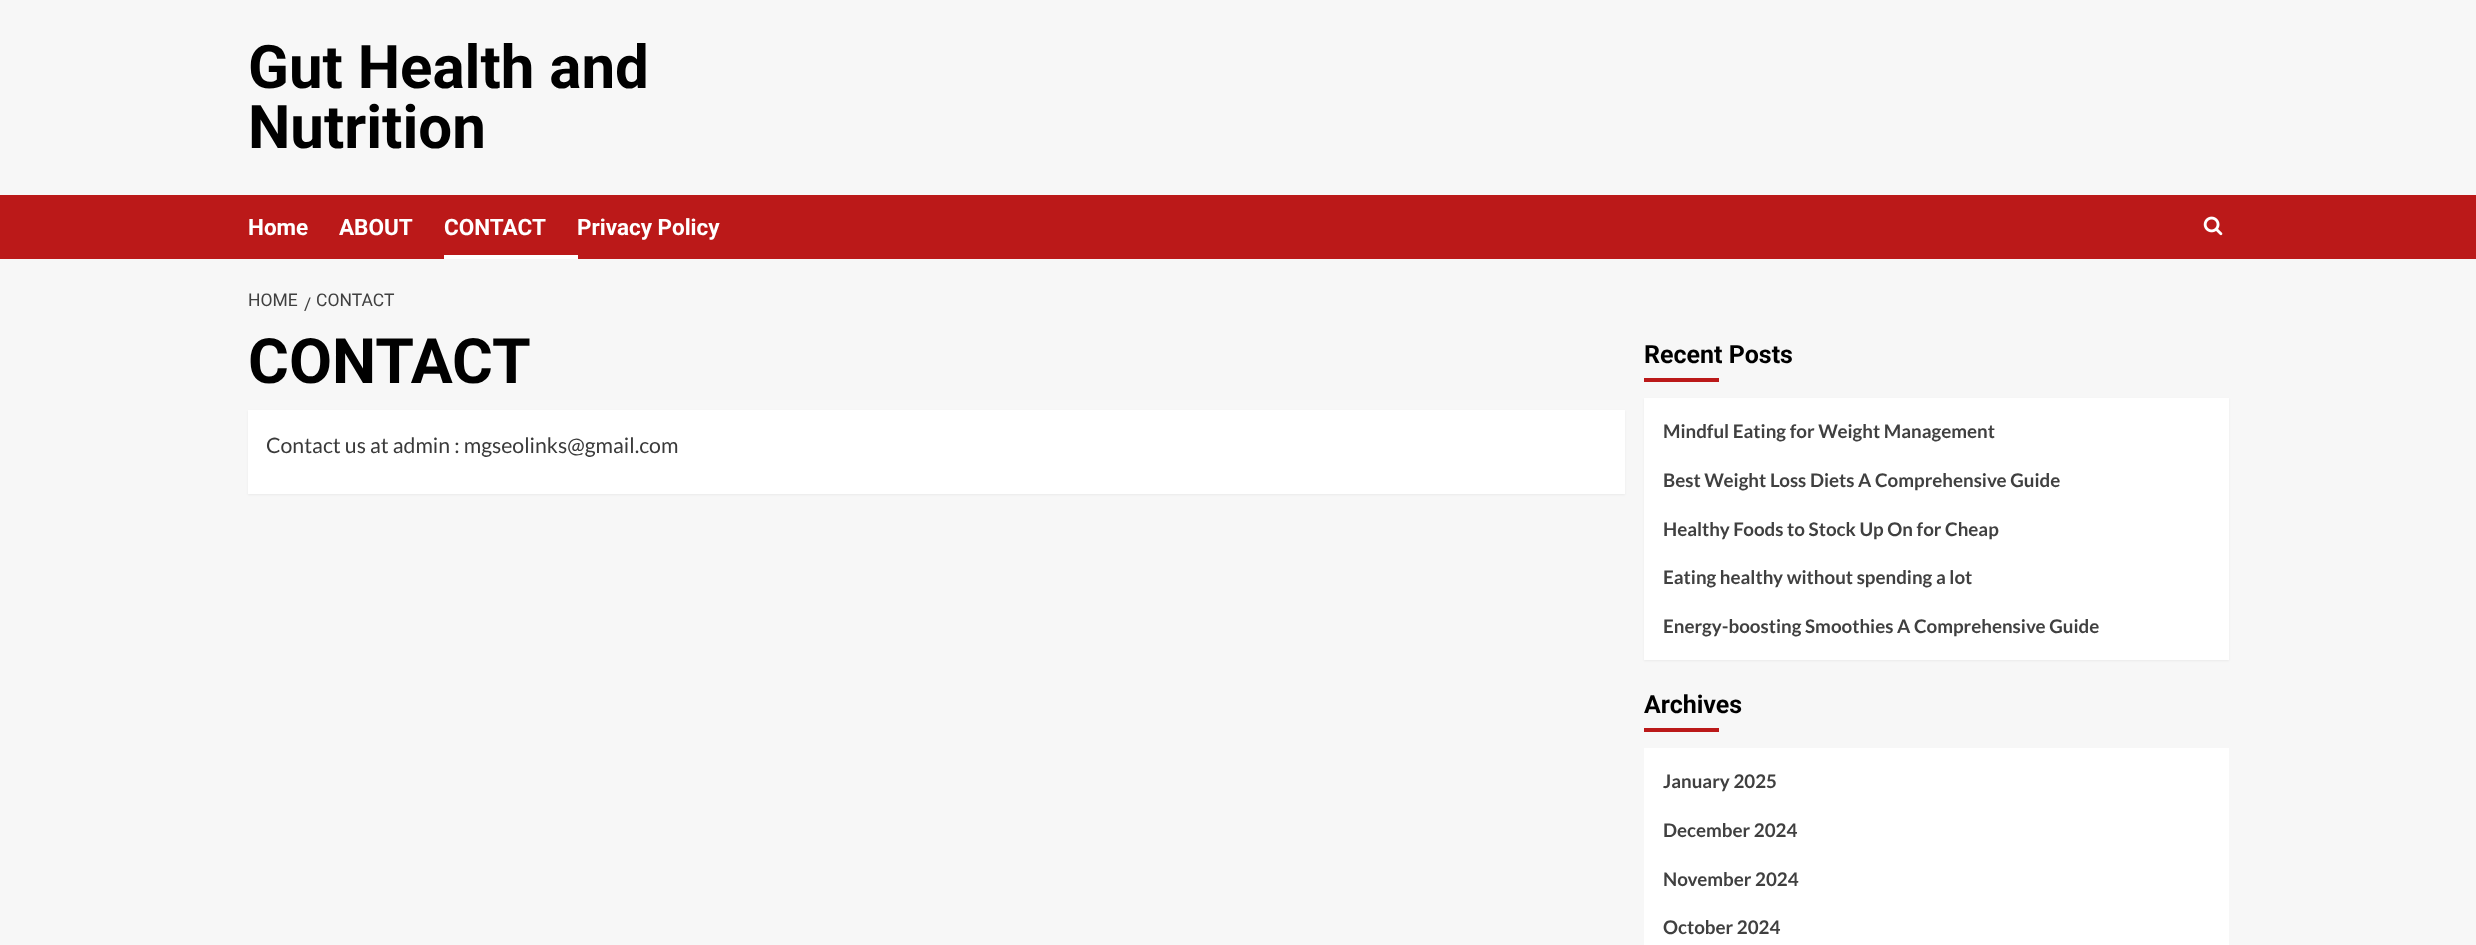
<svg xmlns="http://www.w3.org/2000/svg" width="2476" height="945">
	<rect width="100%" height="100%" fill="#F7F7F7" />
	<g font-family="Roboto" font-size="60" font-weight="700" fill="#000000">
		<text x="248" y="88">Gut Health and</text>
		<text x="248" y="148">Nutrition</text>
	</g>
	<rect x="0" y="195" width="2476" height="64" fill="#BB1919" />
	<g font-family="Roboto" font-size="22.5" font-weight="700" fill="#FFFFFF">
		<text x="248" y="235">Home</text>
		<text x="339" y="235">ABOUT</text>
		<text x="444" y="235">CONTACT</text>
	</g>
	<rect x="444" y="255" width="134" height="4" fill="#FFFFFF" />
	<text x="577" y="235" font-family="Roboto" font-size="22.5" font-weight="700" fill="#FFFFFF">Privacy Policy</text>
	<image x="2203" y="216" width="20" height="20" href="assets/img1.png" />
	<g font-family="Roboto" font-size="17.5" fill="#404040">
		<text x="248" y="306">HOME</text>
		<text x="304" y="310">/</text>
		<text x="316" y="306">CONTACT</text>
	</g>
	<text x="248" y="383" font-family="Roboto" font-size="62.5" font-weight="700" fill="#000000">CONTACT</text>
	<rect x="248" y="411" width="1377" height="84" fill="#000000" fill-opacity="0.05" filter="blur(1px)" />
	<rect x="248" y="410" width="1377" height="84" fill="#FFFFFF" />
	<text x="266" y="453" font-family="Lato" font-size="21.25" fill="#3A3A3A">Contact us at admin : mgseolinks@gmail.com</text>
	<text x="1644" y="363" font-family="Roboto" font-size="25" font-weight="700" fill="#000000">Recent Posts</text>
	<rect x="1644" y="378" width="75" height="4" fill="#BB1919" />
	<rect x="1644" y="399" width="585" height="262" fill="#000000" fill-opacity="0.05" filter="blur(1px)" />
	<rect x="1644" y="398" width="585" height="262" fill="#FFFFFF" />
	<g font-family="Lato" font-size="18.75" font-weight="700" fill="#404040">
		<text x="1663" y="438">Mindful Eating for Weight Management</text>
		<text x="1663" y="487">Best Weight Loss Diets A Comprehensive Guide</text>
		<text x="1663" y="536">Healthy Foods to Stock Up On for Cheap</text>
		<text x="1663" y="584">Eating healthy without spending a lot</text>
		<text x="1663" y="633">Energy-boosting Smoothies A Comprehensive Guide</text>
	</g>
	<text x="1644" y="713" font-family="Roboto" font-size="25" font-weight="700" fill="#000000">Archives</text>
	<rect x="1644" y="728" width="75" height="4" fill="#BB1919" />
	<rect x="1644" y="748" width="585" height="197" fill="#FFFFFF" />
	<g font-family="Lato" font-size="18.75" font-weight="700" fill="#404040">
		<text x="1663" y="788">January 2025</text>
		<text x="1663" y="837">December 2024</text>
		<text x="1663" y="886">November 2024</text>
		<text x="1663" y="934">October 2024</text>
	</g>
</svg>
